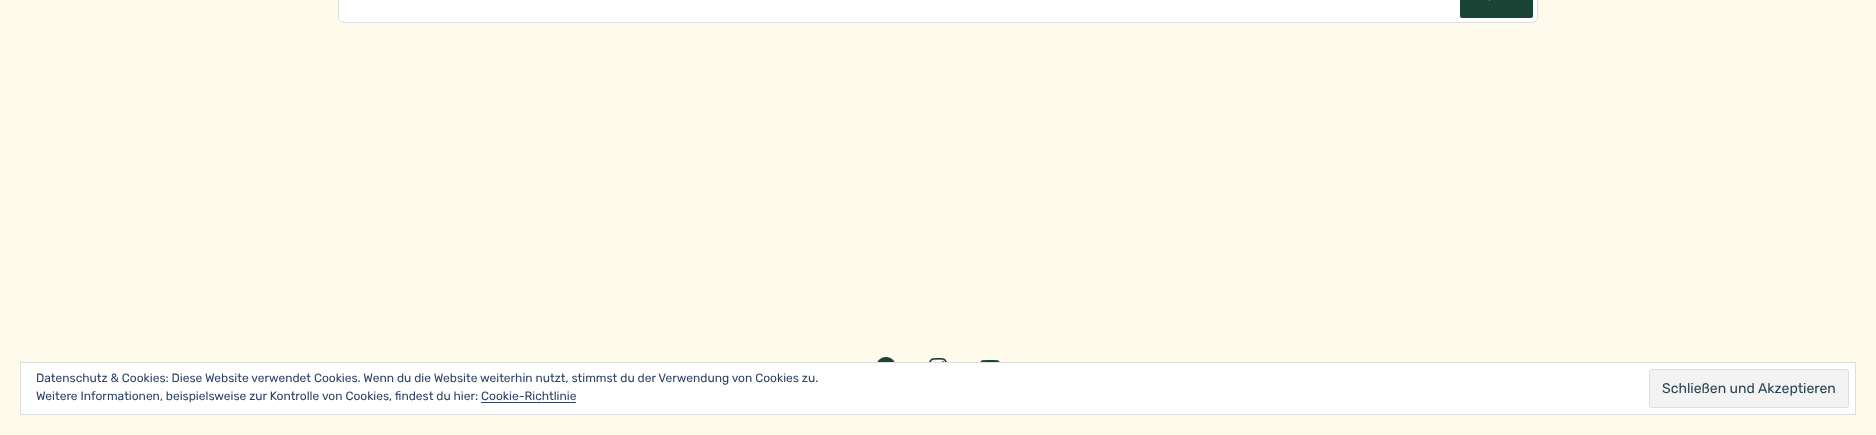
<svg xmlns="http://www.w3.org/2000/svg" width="1876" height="435">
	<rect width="100%" height="100%" fill="#FEFBEC" />
	<rect x="338.5" y="-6.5" width="1199" height="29" rx="5.5" fill="#FFFFFF" stroke="#DFDFDF" />
	<rect x="1460" y="-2" width="73" height="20" rx="2" fill="#1A4435" />
	<image x="1489" y="0" width="1" height="1" href="assets/img1.png" />
	<image x="877" y="357" width="18" height="5" href="assets/img2.png" />
	<image x="929" y="358" width="18" height="4" href="assets/img3.png" />
	<image x="980" y="360" width="20" height="2" href="assets/img4.png" />
	<rect x="20.5" y="362.5" width="1835" height="52" fill="#FFFFFF" stroke="#DEDEDE" />
	<g font-family="Rubik" font-size="12" fill="#2E4467">
		<text x="36" y="382">Datenschutz &amp; Cookies: Diese Website verwendet Cookies. Wenn du die Website weiterhin nutzt, stimmst du der Verwendung von Cookies zu.</text>
		<text x="36" y="400">Weitere Informationen, beispielsweise zur Kontrolle von Cookies, findest du hier: Cookie-Richtlinie</text>
	</g>
	<rect x="1649.5" y="369.5" width="199" height="38" rx="2.5" fill="#F3F3F3" stroke="#DEDEDE" />
	<text x="1662" y="393" font-family="Rubik" font-size="14" fill="#2E4453">Schließen und Akzeptieren</text>
	<rect x="481" y="402" width="95" height="1" fill="#2E4467" />
</svg>
